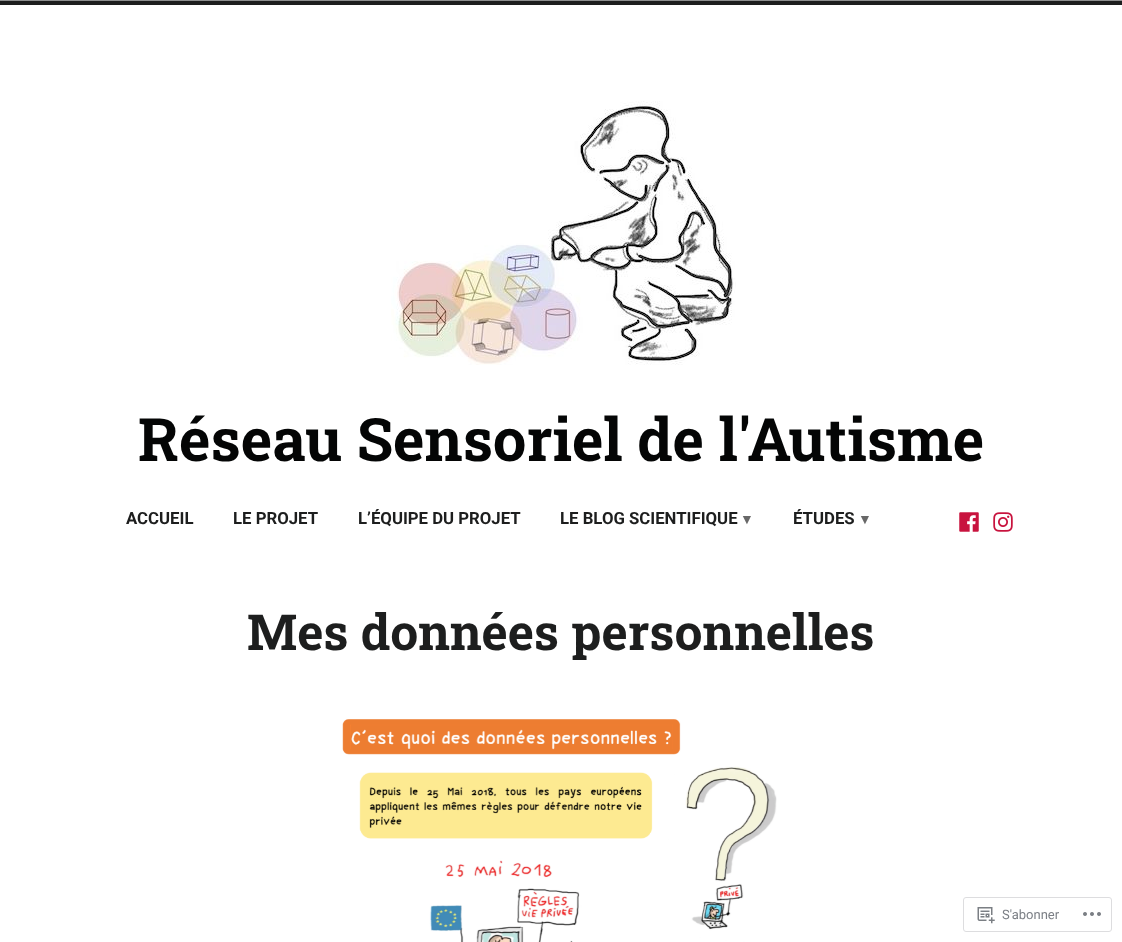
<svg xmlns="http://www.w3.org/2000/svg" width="1122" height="942">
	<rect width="100%" height="100%" fill="#FFFFFF" />
	<rect x="0" y="1" width="1122" height="4" fill="#1D1E1E" />
	<rect x="0" y="0" width="1122" height="1" fill="#8E8F8F" />
	<image x="391" y="101" width="345" height="264" href="assets/img1.png" />
	<text x="138" y="461" font-family="Roboto Slab" font-size="59.75" font-weight="700" fill="#040505">Réseau Sensoriel de l'Autisme</text>
	<g font-family="Roboto" font-size="16.75" font-weight="700" fill="#1D1E1E">
		<text x="126" y="524">ACCUEIL</text>
		<text x="233" y="524">LE PROJET</text>
		<text x="358" y="524">L’ÉQUIPE DU PROJET</text>
		<text x="560" y="524">LE BLOG SCIENTIFIQUE</text>
	</g>
	<text x="740" y="524" font-family="Liberation Serif" font-size="14" font-weight="700" fill="#686868">▼</text>
	<text x="793" y="524" font-family="Roboto" font-size="16.75" font-weight="700" fill="#1D1E1E">ÉTUDES</text>
	<text x="858" y="524" font-family="Liberation Serif" font-size="14" font-weight="700" fill="#686868">▼</text>
	<image x="959" y="512" width="20" height="20" href="assets/img2.png" />
	<image x="993" y="512" width="20" height="20" href="assets/img3.png" />
	<text x="247" y="650" font-family="Roboto Slab" font-size="49.75" font-weight="700" fill="#1D1E1E">Mes données personnelles</text>
	<image x="342" y="719" width="435" height="223" href="assets/img4.png" />
	<rect x="963.5" y="897.5" width="148" height="34" rx="2.5" fill="none" stroke="#DDDDDF" />
	<image x="977" y="907" width="18" height="17" href="assets/img5.png" />
	<text x="1002" y="919" font-family="Roboto" font-size="13" fill="#7B7F85">S'abonner</text>
	<image x="1083" y="912" width="18" height="4" href="assets/img6.png" />
</svg>
